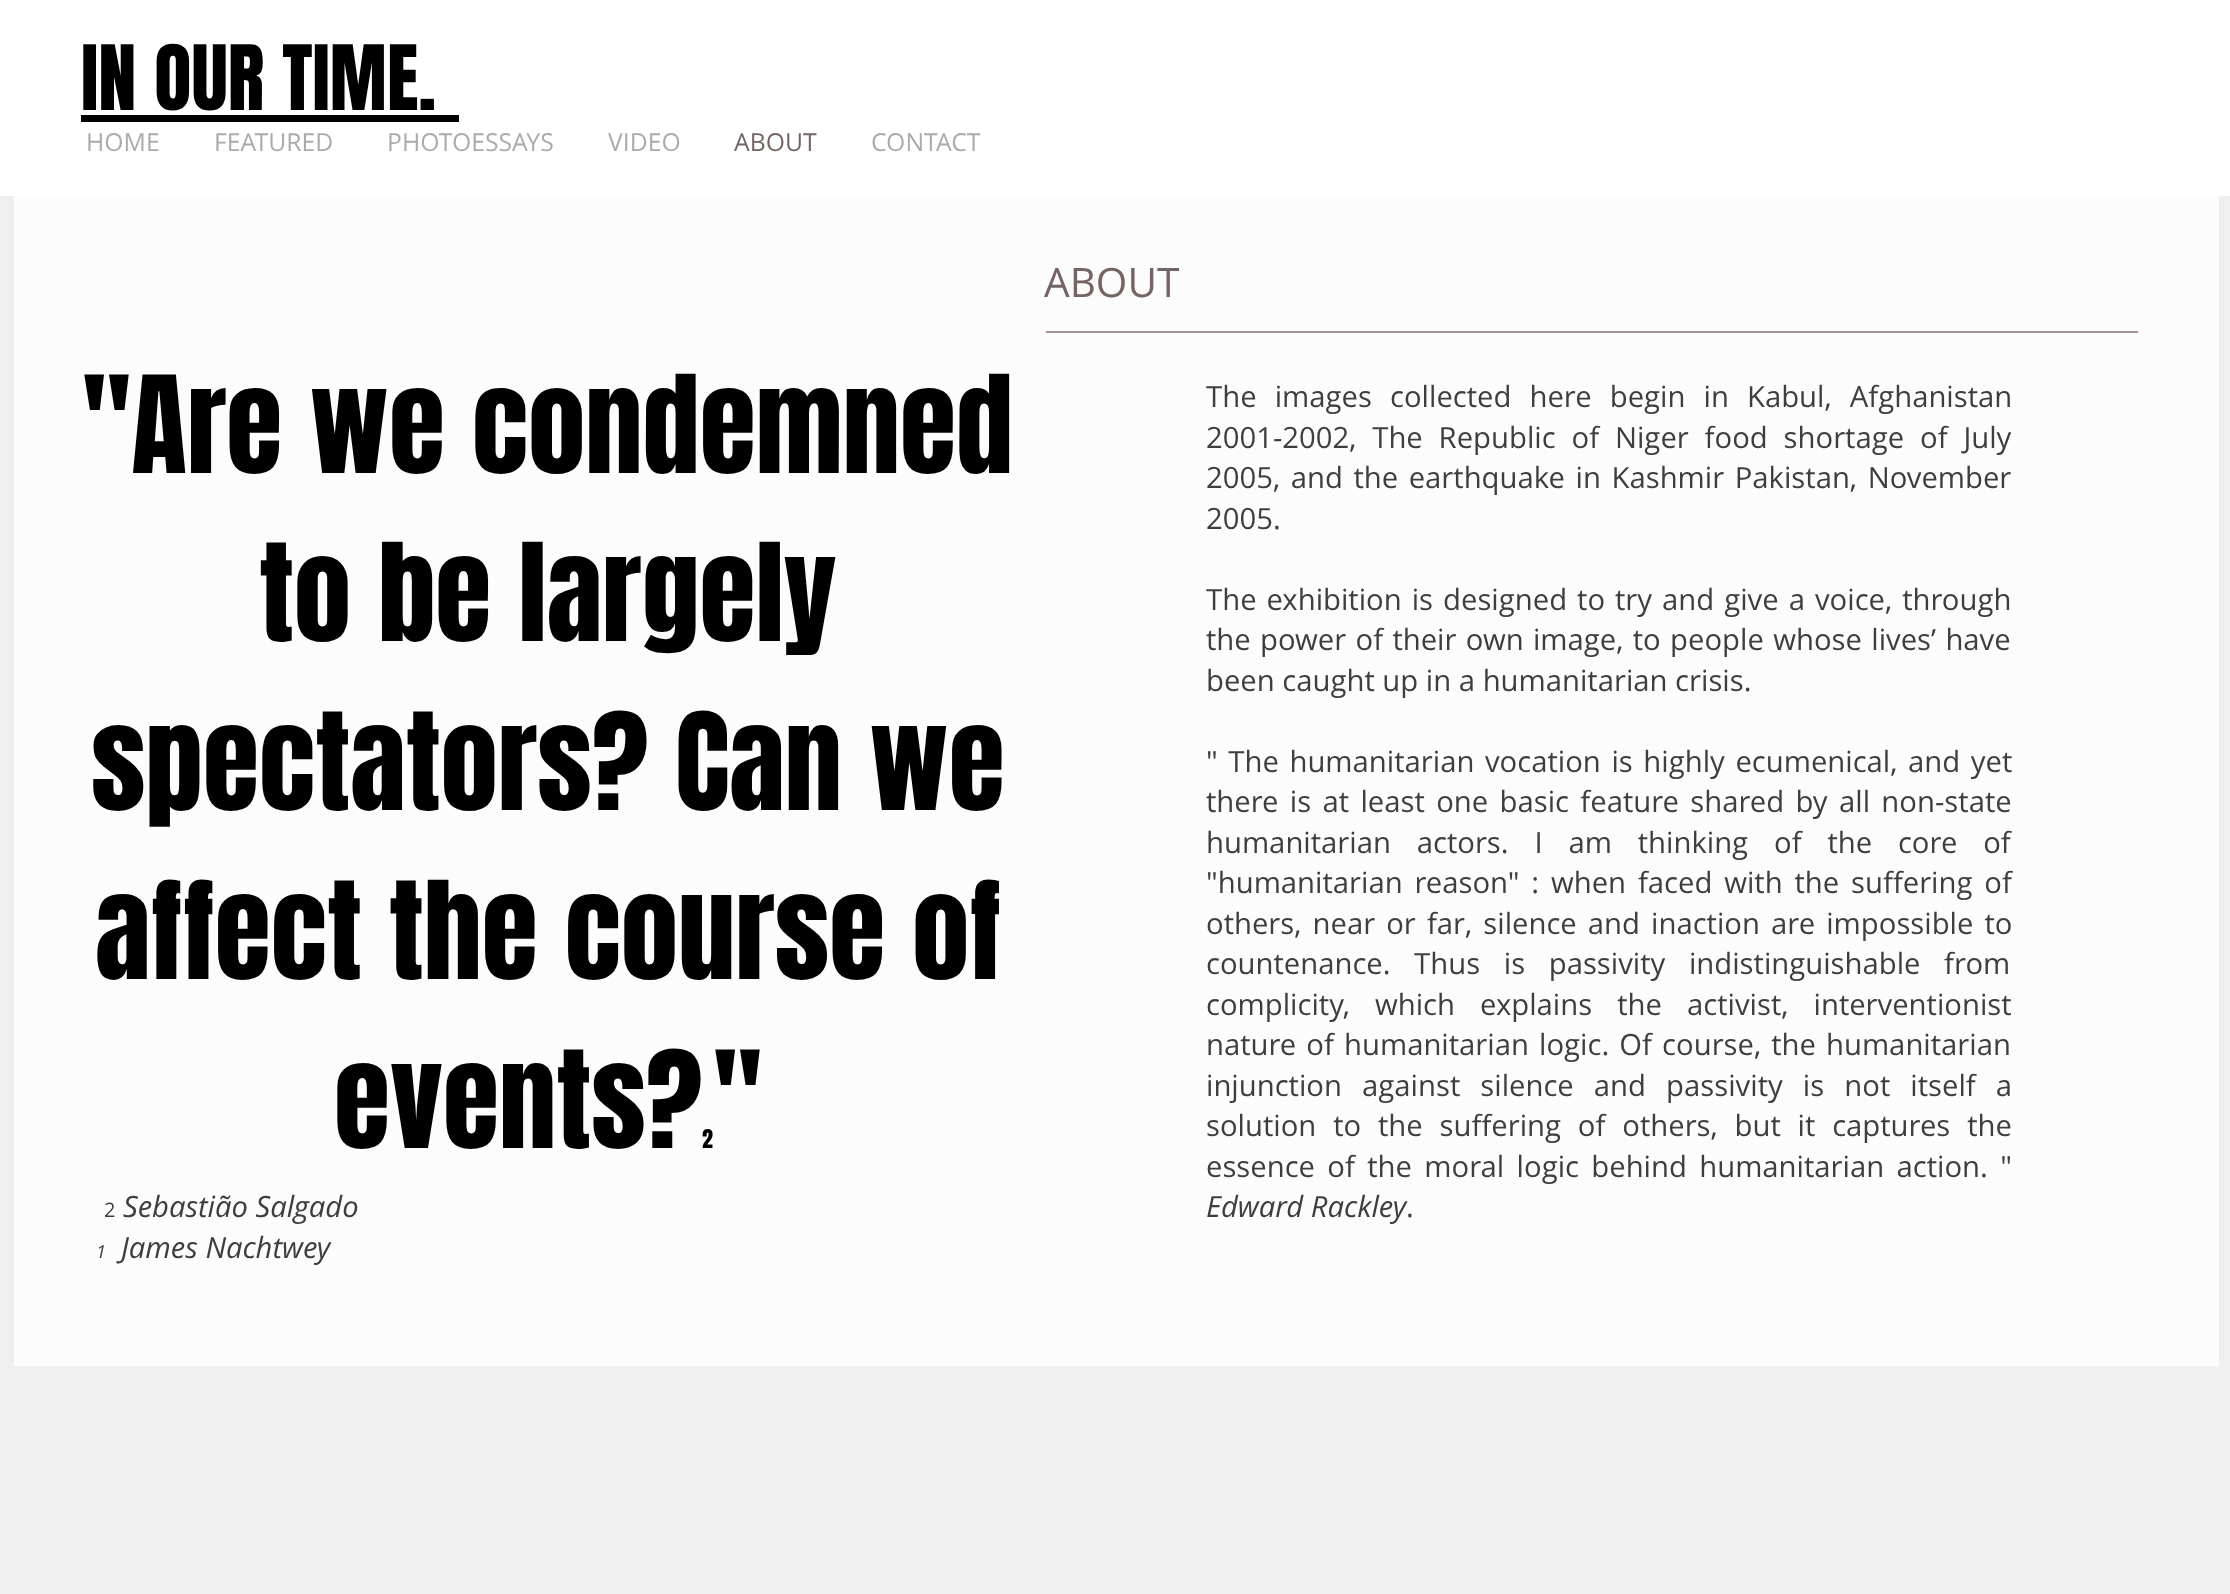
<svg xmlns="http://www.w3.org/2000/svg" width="2230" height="1594">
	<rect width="100%" height="100%" fill="#EFEFEF" />
	<rect x="0" y="0" width="2230" height="196" fill="#FFFFFF" />
	<text x="81" y="110" font-family="Anton" font-size="76.5" fill="#000000">IN OUR TIME.</text>
	<rect x="81" y="115" width="378" height="7" fill="#000000" />
	<g font-family="Open Sans" font-size="24.75" fill="#ABABAB">
		<text x="86" y="151">HOME</text>
		<text x="214" y="151">FEATURED</text>
		<text x="387" y="151">PHOTOESSAYS</text>
		<text x="608" y="151">VIDEO</text>
	</g>
	<text x="734" y="151" font-family="Open Sans" font-size="24.75" fill="#756464">ABOUT</text>
	<text x="871" y="151" font-family="Open Sans" font-size="24.75" fill="#ABABAB">CONTACT</text>
	<rect x="14" y="196" width="2205" height="1170" fill="#FCFCFC" />
	<text x="1044" y="297" font-family="Open Sans" font-size="40.5" fill="#756464">ABOUT</text>
	<rect x="1046" y="331" width="1092" height="2" fill="#A39292" />
	<g font-family="Anton" font-size="114.75" fill="#000000">
		<text x="82" y="473">"Are we condemned</text>
		<text x="259" y="641">to be largely</text>
		<text x="91" y="810">spectators? Can we</text>
		<text x="95" y="979">affect the course of</text>
		<text x="334" y="1148">events?</text>
		<text x="713" y="1148">"</text>
	</g>
	<text x="702" y="1148" font-family="Anton" font-size="22" fill="#000000">2</text>
	<text x="104" y="1217" font-family="Open Sans" font-size="20" fill="#3E3E3E">2</text>
	<text x="123" y="1217" font-family="Open Sans" font-size="29.25" font-style="italic" fill="#3E3E3E">Sebastião Salgado</text>
	<text x="96" y="1258" font-family="Open Sans" font-size="18" font-style="italic" fill="#3E3E3E">1</text>
	<text x="121" y="1258" font-family="Open Sans" font-size="29.25" font-style="italic" fill="#3E3E3E">James Nachtwey</text>
	<g font-family="Open Sans" font-size="29.25" fill="#3E3E3E">
		<text x="1206" y="407" word-spacing="10.5">The images collected here begin in Kabul, Afghanistan</text>
		<text x="1206" y="448" word-spacing="8.25">2001-2002, The Republic of Niger food shortage of July</text>
		<text x="1206" y="488" word-spacing="3">2005, and the earthquake in Kashmir Pakistan, November</text>
		<text x="1206" y="529">2005.</text>
		<text x="1206" y="610" word-spacing="2.4">The exhibition is designed to try and give a voice, through</text>
		<text x="1206" y="650" word-spacing="1.75">the power of their own image, to people whose lives’ have</text>
		<text x="1206" y="691">been caught up in a humanitarian crisis.</text>
		<text x="1206" y="772" word-spacing="3">" The humanitarian vocation is highly ecumenical, and yet</text>
		<text x="1206" y="812" word-spacing="3.75">there is at least one basic feature shared by all non-state</text>
		<text x="1206" y="853" word-spacing="18.25">humanitarian actors. I am thinking of the core of</text>
		<text x="1206" y="893" word-spacing="4.25">"humanitarian reason" : when faced with the suffering of</text>
		<text x="1206" y="934" word-spacing="3.5">others, near or far, silence and inaction are impossible to</text>
		<text x="1206" y="974" word-spacing="16">countenance. Thus is passivity indistinguishable from</text>
		<text x="1206" y="1015" word-spacing="17.5">complicity, which explains the activist, interventionist</text>
		<text x="1206" y="1055" word-spacing="2.5">nature of humanitarian logic. Of course, the humanitarian</text>
		<text x="1206" y="1096" word-spacing="12.5">injunction against silence and passivity is not itself a</text>
		<text x="1206" y="1136" word-spacing="9.25">solution to the suffering of others, but it captures the</text>
		<text x="1206" y="1177" word-spacing="4.75">essence of the moral logic behind humanitarian action. "</text>
	</g>
	<text x="1206" y="1217" font-family="Open Sans" font-size="29.25" font-style="italic" fill="#3E3E3E">Edward Rackley</text>
	<text x="1406" y="1217" font-family="Open Sans" font-size="29.25" fill="#3E3E3E">.</text>
</svg>
